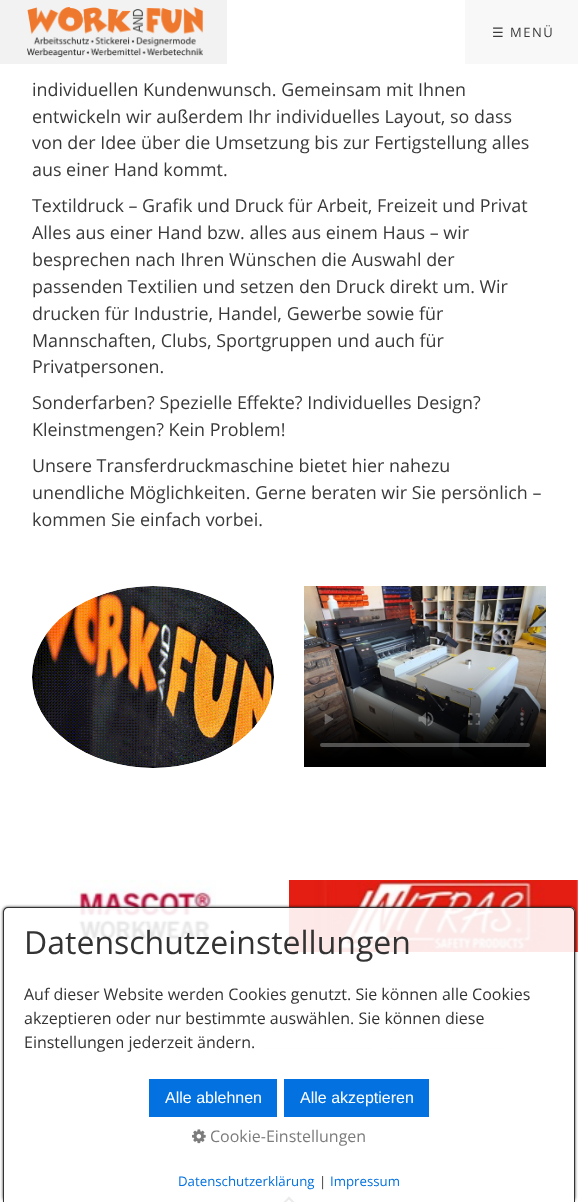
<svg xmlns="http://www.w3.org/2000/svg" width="578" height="1202">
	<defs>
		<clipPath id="clip1"><path d="M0 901H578V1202H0ZM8 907H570C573 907 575 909 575 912V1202H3V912C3 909 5 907 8 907Z" clip-rule="evenodd" /></clipPath>
	</defs>
	<rect width="100%" height="100%" fill="#FFFFFF" />
	<rect x="0" y="0" width="227" height="64" fill="#F2F2F2" />
	<image x="27" y="7" width="176" height="50" href="assets/img1.png" />
	<rect x="465" y="0" width="113" height="64" fill="#F8F8F8" />
	<text x="492" y="37" font-family="DejaVu Sans" font-size="13" letter-spacing="1.5" fill="#393939">☰</text>
	<text x="510" y="37" font-family="Open Sans" font-size="13" letter-spacing="1.5" fill="#393939">MENÜ</text>
	<g font-family="Open Sans" font-size="17.9" fill="#393939">
		<text x="32" y="96">individuellen Kundenwunsch. Gemeinsam mit Ihnen</text>
		<text x="32" y="123">entwickeln wir außerdem Ihr individuelles Layout, so dass</text>
		<text x="32" y="149">von der Idee über die Umsetzung bis zur Fertigstellung alles</text>
		<text x="32" y="176">aus einer Hand kommt.</text>
		<text x="32" y="212">Textildruck – Grafik und Druck für Arbeit, Freizeit und Privat</text>
		<text x="32" y="239">Alles aus einer Hand bzw. alles aus einem Haus – wir</text>
		<text x="32" y="266">besprechen nach Ihren Wünschen die Auswahl der</text>
		<text x="32" y="293">passenden Textilien und setzen den Druck direkt um. Wir</text>
		<text x="32" y="320">drucken für Industrie, Handel, Gewerbe sowie für</text>
		<text x="32" y="347">Mannschaften, Clubs, Sportgruppen und auch für</text>
		<text x="32" y="373">Privatpersonen.</text>
		<text x="32" y="409">Sonderfarben? Spezielle Effekte? Individuelles Design?</text>
		<text x="32" y="436">Kleinstmengen? Kein Problem!</text>
		<text x="32" y="472">Unsere Transferdruckmaschine bietet hier nahezu</text>
		<text x="32" y="499">unendliche Möglichkeiten. Gerne beraten wir Sie persönlich –</text>
		<text x="32" y="526">kommen Sie einfach vorbei.</text>
	</g>
	<image x="32" y="586" width="242" height="182" href="assets/img2.png" />
	<image x="304" y="586" width="242" height="181" href="assets/img3.png" />
	<image x="70" y="880" width="146" height="63" href="assets/img4.png" />
	<image x="289" y="880" width="289" height="72" href="assets/img5.png" />
	<path d="M74 1048.5H163" fill="none" stroke="#E7E7E7" stroke-dasharray="1 1" />
	<path d="M178 1048.5H251" fill="none" stroke="#E7E7E7" stroke-dasharray="1 1" />
	<path d="M266 1048.5H372" fill="none" stroke="#E7E7E7" stroke-dasharray="1 1" />
	<path d="M387 1048.5H504" fill="none" stroke="#E7E7E7" stroke-dasharray="1 1" />
	<path d="M242 1089.5H346" fill="none" stroke="#E7E7E7" stroke-dasharray="1 1" />
	<path d="M277.5 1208L289 1196.5L290.5 1198L279 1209.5Z" fill="#393939" />
	<path d="M287.5 1198L289 1196.5L300.5 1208L299 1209.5Z" fill="#393939" />
	<g clip-path="url(#clip1)">
		<rect x="3" y="907" width="572" height="295" rx="5" fill="#000000" fill-opacity="0.8" filter="blur(1.5px)" />
	</g>
	<path d="M8 907H570C573 907 575 909 575 912V1202H3V912C3 909 5 907 8 907Z" fill="#FFFFFF" fill-opacity="0.9" />
	<path d="M8 907H570C573 907 575 909 575 912V1202H3V912C3 909 5 907 8 907ZM8 908H570C572 908 574 910 574 912V1202H4V912C4 910 6 908 8 908Z" fill="#333333" fill-rule="evenodd" />
	<text x="24" y="954" font-family="Open Sans" font-size="32" fill="#333333">Datenschutzeinstellungen</text>
	<g font-family="Open Sans" font-size="16" fill="#333333">
		<text x="24" y="1000">Auf dieser Website werden Cookies genutzt. Sie können alle Cookies</text>
		<text x="24" y="1024">akzeptieren oder nur bestimmte auswählen. Sie können diese</text>
		<text x="24" y="1048">Einstellungen jederzeit ändern.</text>
	</g>
	<rect x="149" y="1079" width="128" height="38" fill="#0371DF" />
	<text x="165" y="1103" font-family="Liberation Sans" font-size="16" fill="#FFFFFF">Alle ablehnen</text>
	<rect x="284" y="1079" width="145" height="38" fill="#0371DF" />
	<text x="300" y="1103" font-family="Liberation Sans" font-size="16" fill="#FFFFFF">Alle akzeptieren</text>
	<image x="192" y="1129" width="14" height="15" href="assets/img6.png" />
	<text x="210" y="1142" font-family="Open Sans" font-size="16" fill="#7C7C7C">Cookie-Einstellungen</text>
	<text x="178" y="1186" font-family="Open Sans" font-size="13.25" fill="#0371DF">Datenschutzerklärung</text>
	<text x="319" y="1186" font-family="Open Sans" font-size="13.25" fill="#333333">|</text>
	<text x="330" y="1186" font-family="Open Sans" font-size="13.25" fill="#0371DF">Impressum</text>
</svg>
